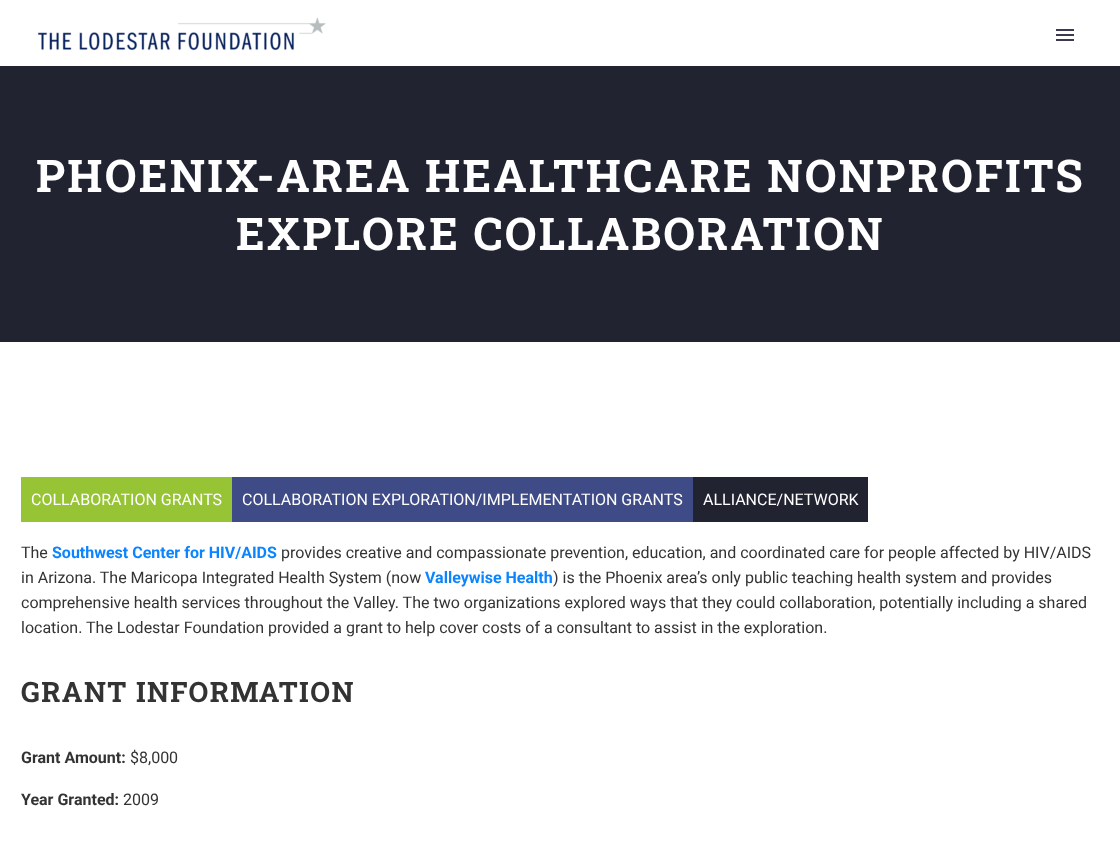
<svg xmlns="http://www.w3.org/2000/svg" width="1120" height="841">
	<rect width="100%" height="100%" fill="#FFFFFF" />
	<image x="37" y="17" width="289" height="34" href="assets/img1.png" />
	<rect x="1056" y="29" width="18" height="2" fill="#3C3950" />
	<rect x="1056" y="34" width="18" height="2" fill="#3C3950" />
	<rect x="1056" y="39" width="18" height="2" fill="#3C3950" />
	<rect x="0" y="66" width="1120" height="276" fill="#212331" />
	<g font-family="Roboto Slab" font-size="45" font-weight="700" letter-spacing="2.25" fill="#FFFFFF">
		<text x="36" y="192">PHOENIX-AREA HEALTHCARE NONPROFITS</text>
		<text x="236" y="250">EXPLORE COLLABORATION</text>
	</g>
	<rect x="21" y="477" width="211" height="45" fill="#96C434" />
	<text x="31" y="505" font-family="Roboto" font-size="16" fill="#FFFFFF">COLLABORATION GRANTS</text>
	<rect x="232" y="477" width="461" height="45" fill="#3F4B86" />
	<text x="242" y="505" font-family="Roboto" font-size="16" fill="#FFFFFF">COLLABORATION EXPLORATION/IMPLEMENTATION GRANTS</text>
	<rect x="693" y="477" width="175" height="45" fill="#212331" />
	<text x="703" y="505" font-family="Roboto" font-size="16" fill="#FFFFFF">ALLIANCE/NETWORK</text>
	<text x="21" y="558" font-family="Roboto" font-size="16" fill="#333333">The</text>
	<text x="52" y="558" font-family="Roboto" font-size="16" font-weight="700" fill="#0A84FF">Southwest Center for HIV/AIDS</text>
	<g font-family="Roboto" font-size="16" fill="#333333">
		<text x="281" y="558">provides creative and compassionate prevention, education, and coordinated care for people affected by HIV/AIDS</text>
		<text x="21" y="583">in Arizona. The Maricopa Integrated Health System (now</text>
	</g>
	<text x="425" y="583" font-family="Roboto" font-size="16" font-weight="700" fill="#0A84FF">Valleywise Health</text>
	<g font-family="Roboto" font-size="16" fill="#333333">
		<text x="553" y="583">) is the Phoenix area’s only public teaching health system and provides</text>
		<text x="21" y="608">comprehensive health services throughout the Valley. The two organizations explored ways that they could collaboration, potentially including a shared</text>
		<text x="21" y="633">location. The Lodestar Foundation provided a grant to help cover costs of a consultant to assist in the exploration.</text>
	</g>
	<text x="21" y="702" font-family="Roboto Slab" font-size="28" font-weight="700" letter-spacing="1.4" fill="#333333">GRANT INFORMATION</text>
	<text x="21" y="763" font-family="Roboto" font-size="16" font-weight="700" fill="#333333">Grant Amount:</text>
	<text x="130" y="763" font-family="Roboto" font-size="16" fill="#333333">$8,000</text>
	<text x="21" y="805" font-family="Roboto" font-size="16" font-weight="700" fill="#333333">Year Granted:</text>
	<text x="123" y="805" font-family="Roboto" font-size="16" fill="#333333">2009</text>
</svg>
